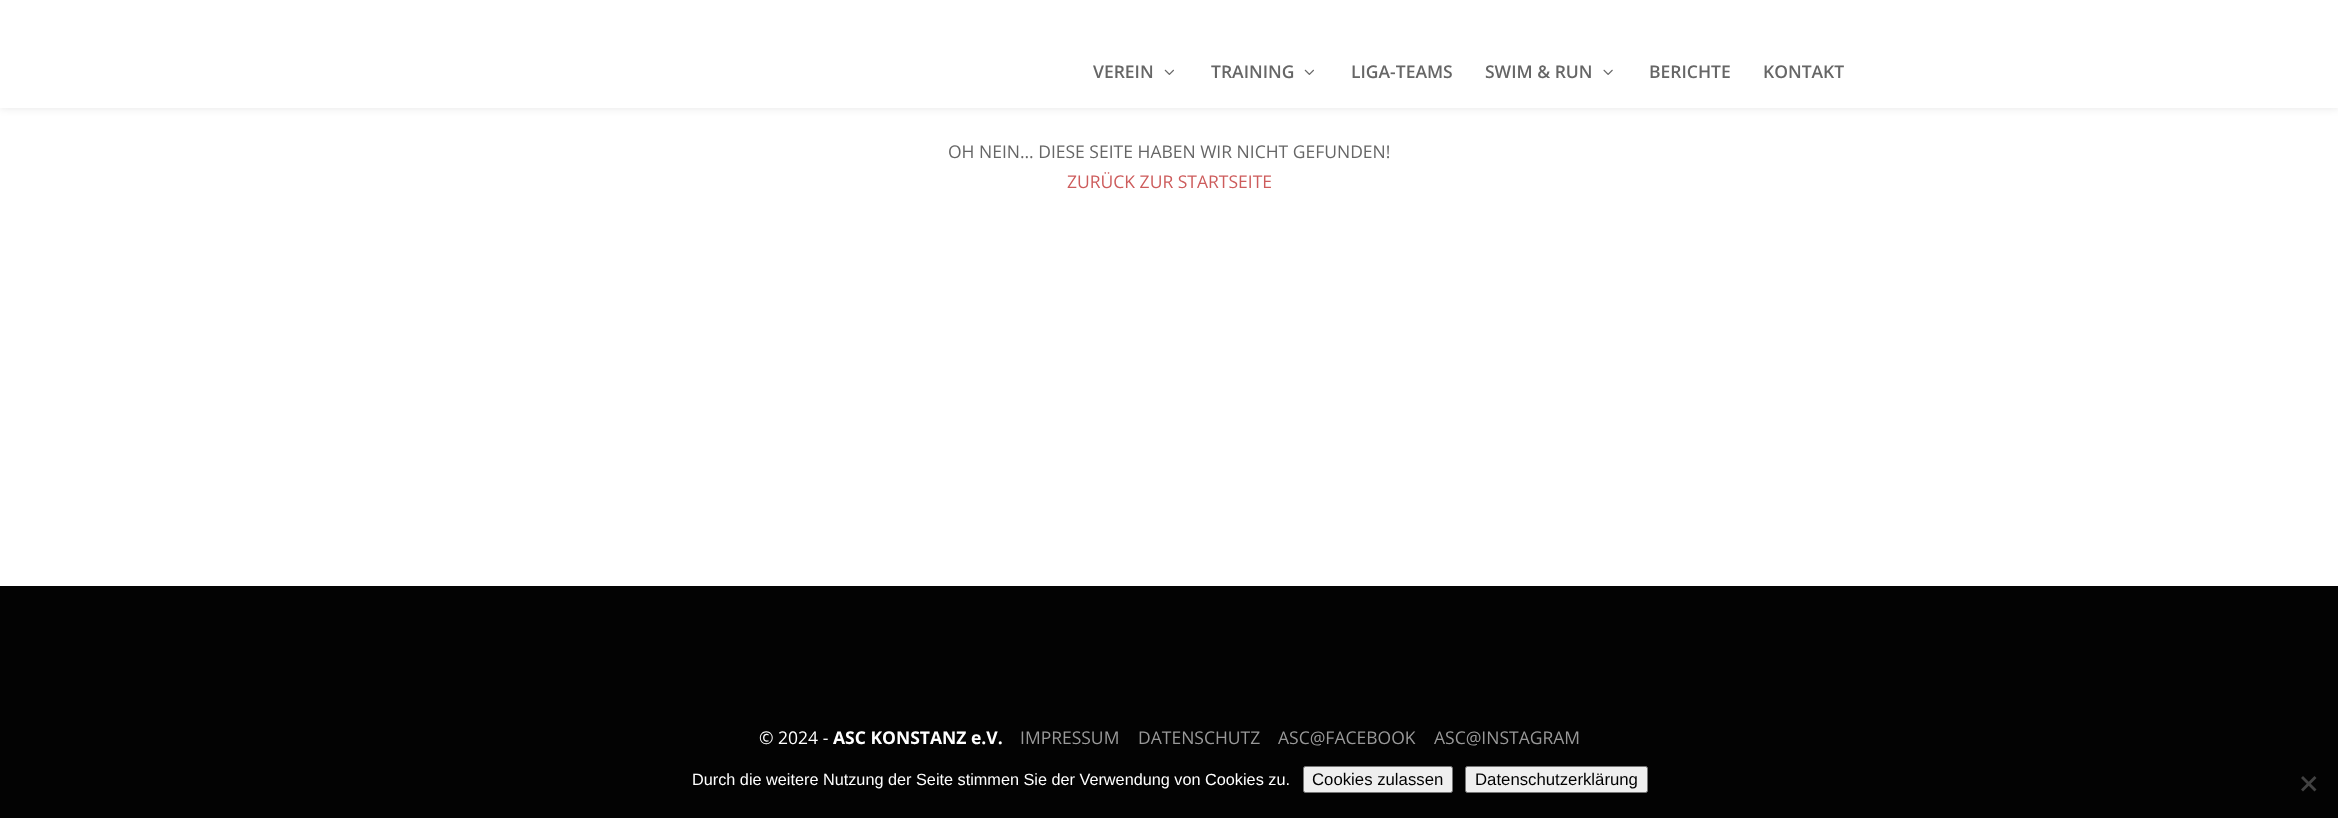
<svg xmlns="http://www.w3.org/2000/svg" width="2338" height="818">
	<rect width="100%" height="100%" fill="#FFFFFF" />
	<rect x="0" y="0" width="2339" height="108" fill="#000000" fill-opacity="0.1" filter="blur(4.5px)" />
	<rect x="0" y="0" width="2338" height="108" fill="#FFFFFF" />
	<text x="1093" y="78" font-family="Open Sans" font-size="17.5" font-weight="600" fill="#666666">VEREIN</text>
	<image x="1164" y="69" width="10" height="6" href="assets/img1.png" />
	<text x="1211" y="78" font-family="Open Sans" font-size="17.5" font-weight="600" fill="#666666">TRAINING</text>
	<image x="1304" y="69" width="10" height="6" href="assets/img1.png" />
	<g font-family="Open Sans" font-size="17.5" font-weight="600" fill="#666666">
		<text x="1351" y="78">LIGA-TEAMS</text>
		<text x="1485" y="78">SWIM &amp; RUN</text>
	</g>
	<image x="1603" y="69" width="10" height="6" href="assets/img2.png" />
	<g font-family="Open Sans" font-size="17.5" font-weight="600" fill="#666666">
		<text x="1649" y="78">BERICHTE</text>
		<text x="1763" y="78">KONTAKT</text>
	</g>
	<text x="948" y="158" font-family="Open Sans" font-size="17.5" fill="#666666">OH NEIN… DIESE SEITE HABEN WIR NICHT GEFUNDEN!</text>
	<text x="1067" y="188" font-family="Open Sans" font-size="17.5" fill="#CD5C5C">ZURÜCK ZUR STARTSEITE</text>
	<rect x="0" y="586" width="2338" height="232" fill="#030303" />
	<text x="759" y="744" font-family="Open Sans" font-size="17.5" fill="#FFFFFF">© 2024 -</text>
	<text x="833" y="744" font-family="Open Sans" font-size="17.5" font-weight="700" fill="#FFFFFF">ASC KONSTANZ e.V.</text>
	<g font-family="Open Sans" font-size="17.5" fill="#999999">
		<text x="1020" y="744">IMPRESSUM</text>
		<text x="1138" y="744">DATENSCHUTZ</text>
		<text x="1278" y="744">ASC@FACEBOOK</text>
		<text x="1434" y="744">ASC@INSTAGRAM</text>
	</g>
	<text x="692" y="785" font-family="Liberation Sans" font-size="16.25" fill="#FFFFFF">Durch die weitere Nutzung der Seite stimmen Sie der Verwendung von Cookies zu.</text>
	<rect x="1303.5" y="766.5" width="149" height="26" rx="2" fill="#EFEFEF" stroke="#767676" />
	<text x="1312" y="785" font-family="Liberation Sans" font-size="16.75" fill="#000000">Cookies zulassen</text>
	<rect x="1465.5" y="766.5" width="182" height="26" rx="2" fill="#EFEFEF" stroke="#767676" />
	<text x="1475" y="785" font-family="Liberation Sans" font-size="16.75" fill="#000000">Datenschutzerklärung</text>
	<path d="M2314.5 776L2316.5 778L2303 791.5L2301 789.5Z" fill="#424242" />
	<path d="M2301 778L2303 776L2316.5 789.5L2314.5 791.5Z" fill="#424242" />
</svg>
